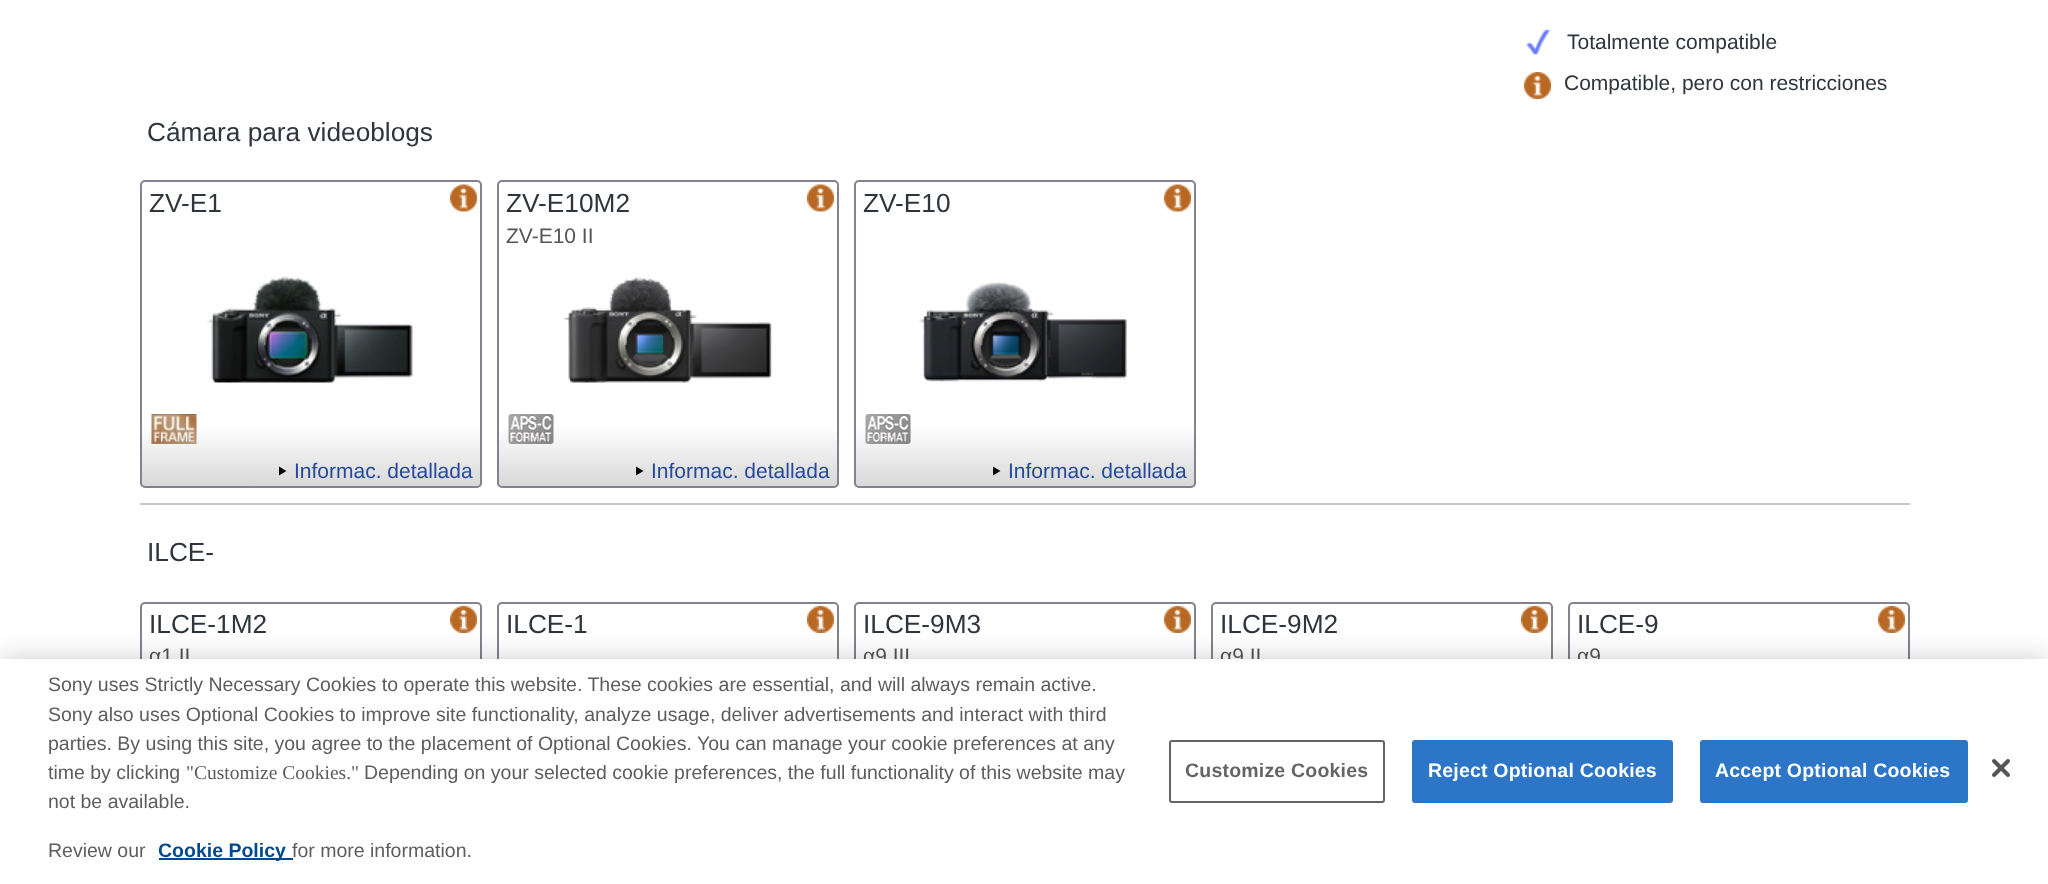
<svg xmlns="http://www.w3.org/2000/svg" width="2048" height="884">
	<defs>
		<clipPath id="clip1"><rect x="140" y="180" width="342" height="308" rx="5" /></clipPath>
		<linearGradient id="g1" gradientUnits="userSpaceOnUse" x1="311" y1="181" x2="311" y2="486"><stop offset="0" stop-color="#FFFFFF" /><stop offset="0.8" stop-color="#FFFFFF" /><stop offset="1" stop-color="#D8D8D8" /></linearGradient>
		<clipPath id="clip2"><rect x="497" y="180" width="342" height="308" rx="5" /></clipPath>
		<linearGradient id="g2" gradientUnits="userSpaceOnUse" x1="668" y1="181" x2="668" y2="486"><stop offset="0" stop-color="#FFFFFF" /><stop offset="0.8" stop-color="#FFFFFF" /><stop offset="1" stop-color="#D8D8D8" /></linearGradient>
		<clipPath id="clip3"><rect x="854" y="180" width="342" height="308" rx="5" /></clipPath>
		<linearGradient id="g3" gradientUnits="userSpaceOnUse" x1="1025" y1="181" x2="1025" y2="486"><stop offset="0" stop-color="#FFFFFF" /><stop offset="0.8" stop-color="#FFFFFF" /><stop offset="1" stop-color="#D8D8D8" /></linearGradient>
		<clipPath id="clip4"><rect x="140" y="602" width="342" height="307" rx="5" /></clipPath>
		<linearGradient id="g4" gradientUnits="userSpaceOnUse" x1="311" y1="603" x2="311" y2="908"><stop offset="0" stop-color="#FFFFFF" /><stop offset="0.8" stop-color="#FFFFFF" /><stop offset="1" stop-color="#D8D8D8" /></linearGradient>
		<clipPath id="clip5"><rect x="497" y="602" width="342" height="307" rx="5" /></clipPath>
		<linearGradient id="g5" gradientUnits="userSpaceOnUse" x1="668" y1="603" x2="668" y2="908"><stop offset="0" stop-color="#FFFFFF" /><stop offset="0.8" stop-color="#FFFFFF" /><stop offset="1" stop-color="#D8D8D8" /></linearGradient>
		<clipPath id="clip6"><rect x="854" y="602" width="342" height="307" rx="5" /></clipPath>
		<linearGradient id="g6" gradientUnits="userSpaceOnUse" x1="1025" y1="603" x2="1025" y2="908"><stop offset="0" stop-color="#FFFFFF" /><stop offset="0.8" stop-color="#FFFFFF" /><stop offset="1" stop-color="#D8D8D8" /></linearGradient>
		<clipPath id="clip7"><rect x="1211" y="602" width="342" height="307" rx="5" /></clipPath>
		<linearGradient id="g7" gradientUnits="userSpaceOnUse" x1="1382" y1="603" x2="1382" y2="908"><stop offset="0" stop-color="#FFFFFF" /><stop offset="0.8" stop-color="#FFFFFF" /><stop offset="1" stop-color="#D8D8D8" /></linearGradient>
		<clipPath id="clip8"><rect x="1568" y="602" width="342" height="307" rx="5" /></clipPath>
		<linearGradient id="g8" gradientUnits="userSpaceOnUse" x1="1739" y1="603" x2="1739" y2="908"><stop offset="0" stop-color="#FFFFFF" /><stop offset="0.8" stop-color="#FFFFFF" /><stop offset="1" stop-color="#D8D8D8" /></linearGradient>
	</defs>
	<rect width="100%" height="100%" fill="#FFFFFF" />
	<image x="1526" y="29" width="24" height="26" href="assets/img1.png" />
	<text x="1567" y="49" font-family="Liberation Sans" font-size="21" fill="#2F353D">Totalmente compatible</text>
	<image x="1524" y="72" width="27" height="27" href="assets/img2.png" />
	<text x="1564" y="90" font-family="Liberation Sans" font-size="21" fill="#2F353D">Compatible, pero con restricciones</text>
	<text x="147" y="141" font-family="Liberation Sans" font-size="26.25" fill="#2F353D">Cámara para videoblogs</text>
	<g clip-path="url(#clip1)">
		<rect x="140" y="182" width="342" height="304" fill="url(#g1)" />
	</g>
	<rect x="141" y="181" width="340" height="306" rx="4" fill="none" stroke="#83838F" stroke-width="2" />
	<text x="149" y="212" font-family="Liberation Sans" font-size="26.25" fill="#2F353D">ZV-E1</text>
	<image x="450" y="184" width="27" height="28" href="assets/img3.png" />
	<image x="207" y="276" width="206" height="107" href="assets/img4.png" />
	<image x="151" y="414" width="46" height="30" href="assets/img5.png" />
	<path d="M279 475.5V466.5L286.5 471Z" fill="#080808" />
	<text x="294" y="478" font-family="Liberation Sans" font-size="21" fill="#264A9B">Informac. detallada</text>
	<g clip-path="url(#clip2)">
		<rect x="497" y="182" width="342" height="304" fill="url(#g2)" />
	</g>
	<rect x="498" y="181" width="340" height="306" rx="4" fill="none" stroke="#83838F" stroke-width="2" />
	<text x="506" y="212" font-family="Liberation Sans" font-size="26.25" fill="#2F353D">ZV-E10M2</text>
	<image x="807" y="184" width="27" height="28" href="assets/img6.png" />
	<text x="506" y="243" font-family="Liberation Sans" font-size="21" fill="#555555">ZV-E10 II</text>
	<image x="563" y="277" width="209" height="106" href="assets/img7.png" />
	<image x="508" y="414" width="46" height="30" href="assets/img8.png" />
	<path d="M636 475.5V466.5L643.5 471Z" fill="#080808" />
	<text x="651" y="478" font-family="Liberation Sans" font-size="21" fill="#264A9B">Informac. detallada</text>
	<g clip-path="url(#clip3)">
		<rect x="854" y="182" width="342" height="304" fill="url(#g3)" />
	</g>
	<rect x="855" y="181" width="340" height="306" rx="4" fill="none" stroke="#83838F" stroke-width="2" />
	<text x="863" y="212" font-family="Liberation Sans" font-size="26.25" fill="#2F353D">ZV-E10</text>
	<image x="1164" y="184" width="27" height="28" href="assets/img3.png" />
	<image x="919" y="282" width="208" height="100" href="assets/img9.png" />
	<image x="865" y="414" width="46" height="30" href="assets/img8.png" />
	<path d="M993 475.5V466.5L1000.5 471Z" fill="#080808" />
	<text x="1008" y="478" font-family="Liberation Sans" font-size="21" fill="#264A9B">Informac. detallada</text>
	<rect x="140" y="503" width="1770" height="2" fill="#C6C7CC" />
	<text x="147" y="561" font-family="Liberation Sans" font-size="26.25" fill="#2F353D">ILCE-</text>
	<g clip-path="url(#clip4)">
		<rect x="140" y="603" width="342" height="56" fill="url(#g4)" />
	</g>
	<rect x="141" y="603" width="340" height="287" rx="4" fill="none" stroke="#83838F" stroke-width="2" />
	<text x="149" y="633" font-family="Liberation Sans" font-size="26.25" fill="#2F353D">ILCE-1M2</text>
	<image x="450" y="606" width="27" height="27" href="assets/img10.png" />
	<text x="149" y="663" font-family="Liberation Sans" font-size="21" fill="#555555">α1 II</text>
	<g clip-path="url(#clip5)">
		<rect x="497" y="603" width="342" height="56" fill="url(#g5)" />
	</g>
	<rect x="498" y="603" width="340" height="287" rx="4" fill="none" stroke="#83838F" stroke-width="2" />
	<text x="506" y="633" font-family="Liberation Sans" font-size="26.25" fill="#2F353D">ILCE-1</text>
	<image x="807" y="606" width="27" height="27" href="assets/img2.png" />
	<g clip-path="url(#clip6)">
		<rect x="854" y="603" width="342" height="56" fill="url(#g6)" />
	</g>
	<rect x="855" y="603" width="340" height="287" rx="4" fill="none" stroke="#83838F" stroke-width="2" />
	<text x="863" y="633" font-family="Liberation Sans" font-size="26.25" fill="#2F353D">ILCE-9M3</text>
	<image x="1164" y="606" width="27" height="27" href="assets/img10.png" />
	<text x="863" y="663" font-family="Liberation Sans" font-size="21" fill="#555555">α9 III</text>
	<g clip-path="url(#clip7)">
		<rect x="1211" y="603" width="342" height="56" fill="url(#g7)" />
	</g>
	<rect x="1212" y="603" width="340" height="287" rx="4" fill="none" stroke="#83838F" stroke-width="2" />
	<text x="1220" y="633" font-family="Liberation Sans" font-size="26.25" fill="#2F353D">ILCE-9M2</text>
	<image x="1521" y="606" width="27" height="27" href="assets/img11.png" />
	<text x="1220" y="663" font-family="Liberation Sans" font-size="21" fill="#555555">α9 II</text>
	<g clip-path="url(#clip8)">
		<rect x="1568" y="603" width="342" height="56" fill="url(#g8)" />
	</g>
	<rect x="1569" y="603" width="340" height="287" rx="4" fill="none" stroke="#83838F" stroke-width="2" />
	<text x="1577" y="633" font-family="Liberation Sans" font-size="26.25" fill="#2F353D">ILCE-9</text>
	<image x="1878" y="606" width="27" height="27" href="assets/img10.png" />
	<text x="1577" y="663" font-family="Liberation Sans" font-size="21" fill="#555555">α9</text>
	<rect x="0" y="659" width="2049" height="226" fill="#000000" fill-opacity="0.2" filter="blur(13.5px)" />
	<rect x="0" y="659" width="2048" height="225" fill="#FFFFFF" />
	<g font-family="Liberation Sans" font-size="19.5" fill="#5D5D5D">
		<text x="48" y="691">Sony uses Strictly Necessary Cookies to operate this website. These cookies are essential, and will always remain active.</text>
		<text x="48" y="721">Sony also uses Optional Cookies to improve site functionality, analyze usage, deliver advertisements and interact with third</text>
		<text x="48" y="750">parties. By using this site, you agree to the placement of Optional Cookies. You can manage your cookie preferences at any</text>
		<text x="48" y="779">time by clicking</text>
	</g>
	<text x="186" y="779" font-family="Liberation Serif" font-size="19.5" fill="#5D5D5D">"Customize Cookies."</text>
	<g font-family="Liberation Sans" font-size="19.5" fill="#5D5D5D">
		<text x="364" y="779">Depending on your selected cookie preferences, the full functionality of this website may</text>
		<text x="48" y="808">not be available.</text>
		<text x="48" y="857">Review our</text>
	</g>
	<rect x="159" y="858" width="134" height="2" fill="#01498E" />
	<text x="158" y="857" font-family="Liberation Sans" font-size="19.5" font-weight="700" fill="#01498E">Cookie Policy</text>
	<text x="292" y="857" font-family="Liberation Sans" font-size="19.5" fill="#5D5D5D">for more information.</text>
	<rect x="1170" y="741" width="214" height="61" rx="2" fill="none" stroke="#646464" stroke-width="2" />
	<text x="1185" y="777" font-family="Liberation Sans" font-size="19.5" font-weight="700" letter-spacing="0.2" fill="#646464">Customize Cookies</text>
	<rect x="1413" y="741" width="259" height="61" rx="2" fill="#2D75C7" stroke="#2D75C7" stroke-width="2" />
	<text x="1428" y="777" font-family="Liberation Sans" font-size="19.5" font-weight="700" letter-spacing="0.2" fill="#FFFFFF">Reject Optional Cookies</text>
	<rect x="1701" y="741" width="266" height="61" rx="2" fill="#2D75C7" stroke="#2D75C7" stroke-width="2" />
	<text x="1715" y="777" font-family="Liberation Sans" font-size="19.5" font-weight="700" letter-spacing="0.2" fill="#FFFFFF">Accept Optional Cookies</text>
	<image x="1992" y="759" width="18" height="18" href="assets/img12.png" />
</svg>
